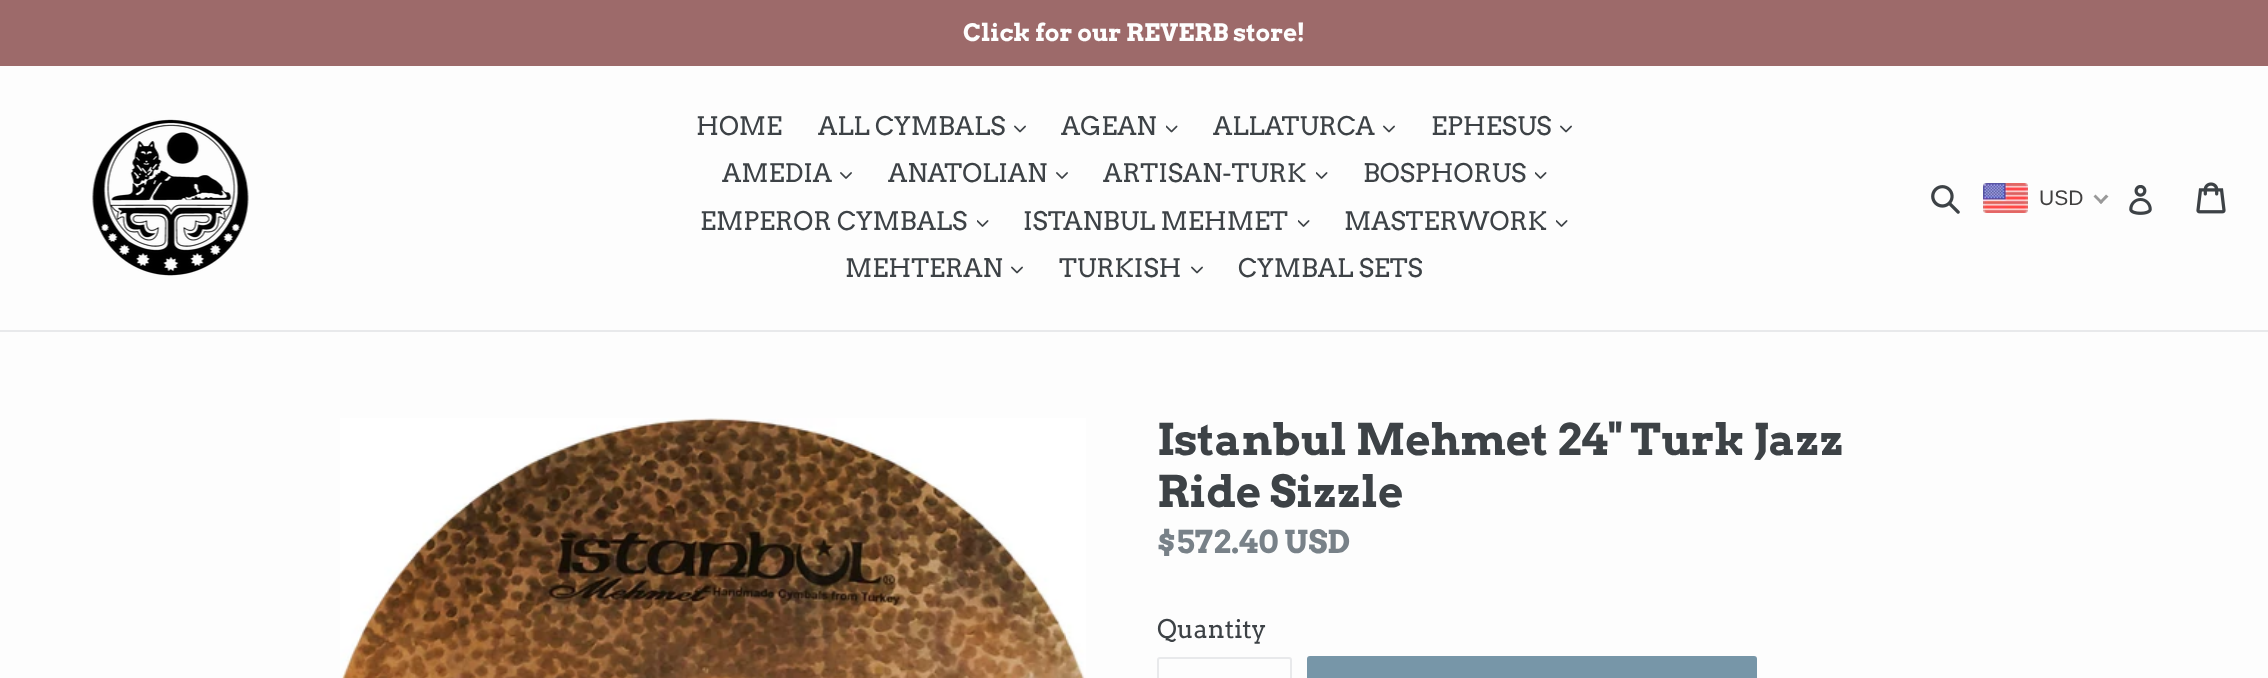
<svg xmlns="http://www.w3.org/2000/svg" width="2268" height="678">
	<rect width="100%" height="100%" fill="#FDFDFD" />
	<rect x="0" y="0" width="2268" height="66" fill="#9D6A6A" />
	<text x="963" y="41" font-family="Arvo" font-size="24" font-weight="700" fill="#FEFEFE">Click for our REVERB store!</text>
	<rect x="0" y="330" width="2268" height="2" fill="#E8E9EB" />
	<image x="92" y="119" width="157" height="157" href="assets/img1.png" />
	<g font-family="Arvo" font-size="25.5" fill="#3D4246">
		<text x="696" y="135">HOME</text>
		<text x="818" y="135">ALL CYMBALS</text>
	</g>
	<image x="1014" y="125" width="12" height="8" href="assets/img2.png" />
	<text x="1061" y="135" font-family="Arvo" font-size="25.5" fill="#3D4246">AGEAN</text>
	<image x="1166" y="125" width="12" height="8" href="assets/img3.png" />
	<text x="1213" y="135" font-family="Arvo" font-size="25.5" fill="#3D4246">ALLATURCA</text>
	<image x="1383" y="125" width="12" height="8" href="assets/img2.png" />
	<text x="1431" y="135" font-family="Arvo" font-size="25.5" fill="#3D4246">EPHESUS</text>
	<image x="1560" y="125" width="12" height="8" href="assets/img2.png" />
	<text x="722" y="182" font-family="Arvo" font-size="25.5" fill="#3D4246">AMEDIA</text>
	<image x="840" y="172" width="12" height="7" href="assets/img4.png" />
	<text x="888" y="182" font-family="Arvo" font-size="25.5" fill="#3D4246">ANATOLIAN</text>
	<image x="1056" y="172" width="12" height="7" href="assets/img4.png" />
	<text x="1103" y="182" font-family="Arvo" font-size="25.5" fill="#3D4246">ARTISAN-TURK</text>
	<image x="1316" y="172" width="12" height="7" href="assets/img5.png" />
	<text x="1363" y="182" font-family="Arvo" font-size="25.5" fill="#3D4246">BOSPHORUS</text>
	<image x="1535" y="172" width="12" height="7" href="assets/img5.png" />
	<text x="700" y="230" font-family="Arvo" font-size="25.5" fill="#3D4246">EMPEROR CYMBALS</text>
	<image x="977" y="220" width="12" height="7" href="assets/img5.png" />
	<text x="1023" y="230" font-family="Arvo" font-size="25.5" fill="#3D4246">ISTANBUL MEHMET</text>
	<image x="1298" y="220" width="12" height="7" href="assets/img5.png" />
	<text x="1344" y="230" font-family="Arvo" font-size="25.5" fill="#3D4246">MASTERWORK</text>
	<image x="1556" y="220" width="12" height="7" href="assets/img5.png" />
	<text x="845" y="277" font-family="Arvo" font-size="25.5" fill="#3D4246">MEHTERAN</text>
	<image x="1011" y="266" width="12" height="8" href="assets/img2.png" />
	<text x="1059" y="277" font-family="Arvo" font-size="25.5" fill="#3D4246">TURKISH</text>
	<image x="1191" y="266" width="12" height="8" href="assets/img2.png" />
	<text x="1238" y="277" font-family="Arvo" font-size="25.5" fill="#3D4246">CYMBAL SETS</text>
	<image x="1931" y="185" width="29" height="29" href="assets/img6.png" />
	<image x="1983" y="183" width="45" height="30" href="assets/img7.png" />
	<text x="2039" y="205" font-family="Liberation Sans" font-size="21" fill="#403F3F">USD</text>
	<path d="M2106 194.5L2108.5 196.5L2101 204L2099 202Z" fill="#999999" />
	<path d="M2095.5 194.5L2103 202L2101 204L2093.5 196.5Z" fill="#999999" />
	<image x="2129" y="185" width="23" height="30" href="assets/img8.png" />
	<image x="2196" y="182" width="30" height="32" href="assets/img9.png" />
	<image x="340" y="418" width="746" height="260" href="assets/img10.png" />
	<g font-family="Arvo" font-size="43.5" font-weight="700" fill="#3D4246">
		<text x="1157" y="455">Istanbul Mehmet 24" Turk Jazz</text>
		<text x="1157" y="507">Ride Sizzle</text>
	</g>
	<text x="1157" y="553" font-family="Arvo" font-size="31.5" font-weight="700" fill="#788188">$572.40 USD</text>
	<text x="1157" y="638" font-family="Arvo" font-size="25.5" fill="#3D4246">Quantity</text>
	<rect x="1158" y="658" width="133" height="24" rx="2" fill="none" stroke="#E8E9EB" stroke-width="2" />
	<rect x="1307" y="656" width="450" height="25" rx="3" fill="#7796A8" />
</svg>
